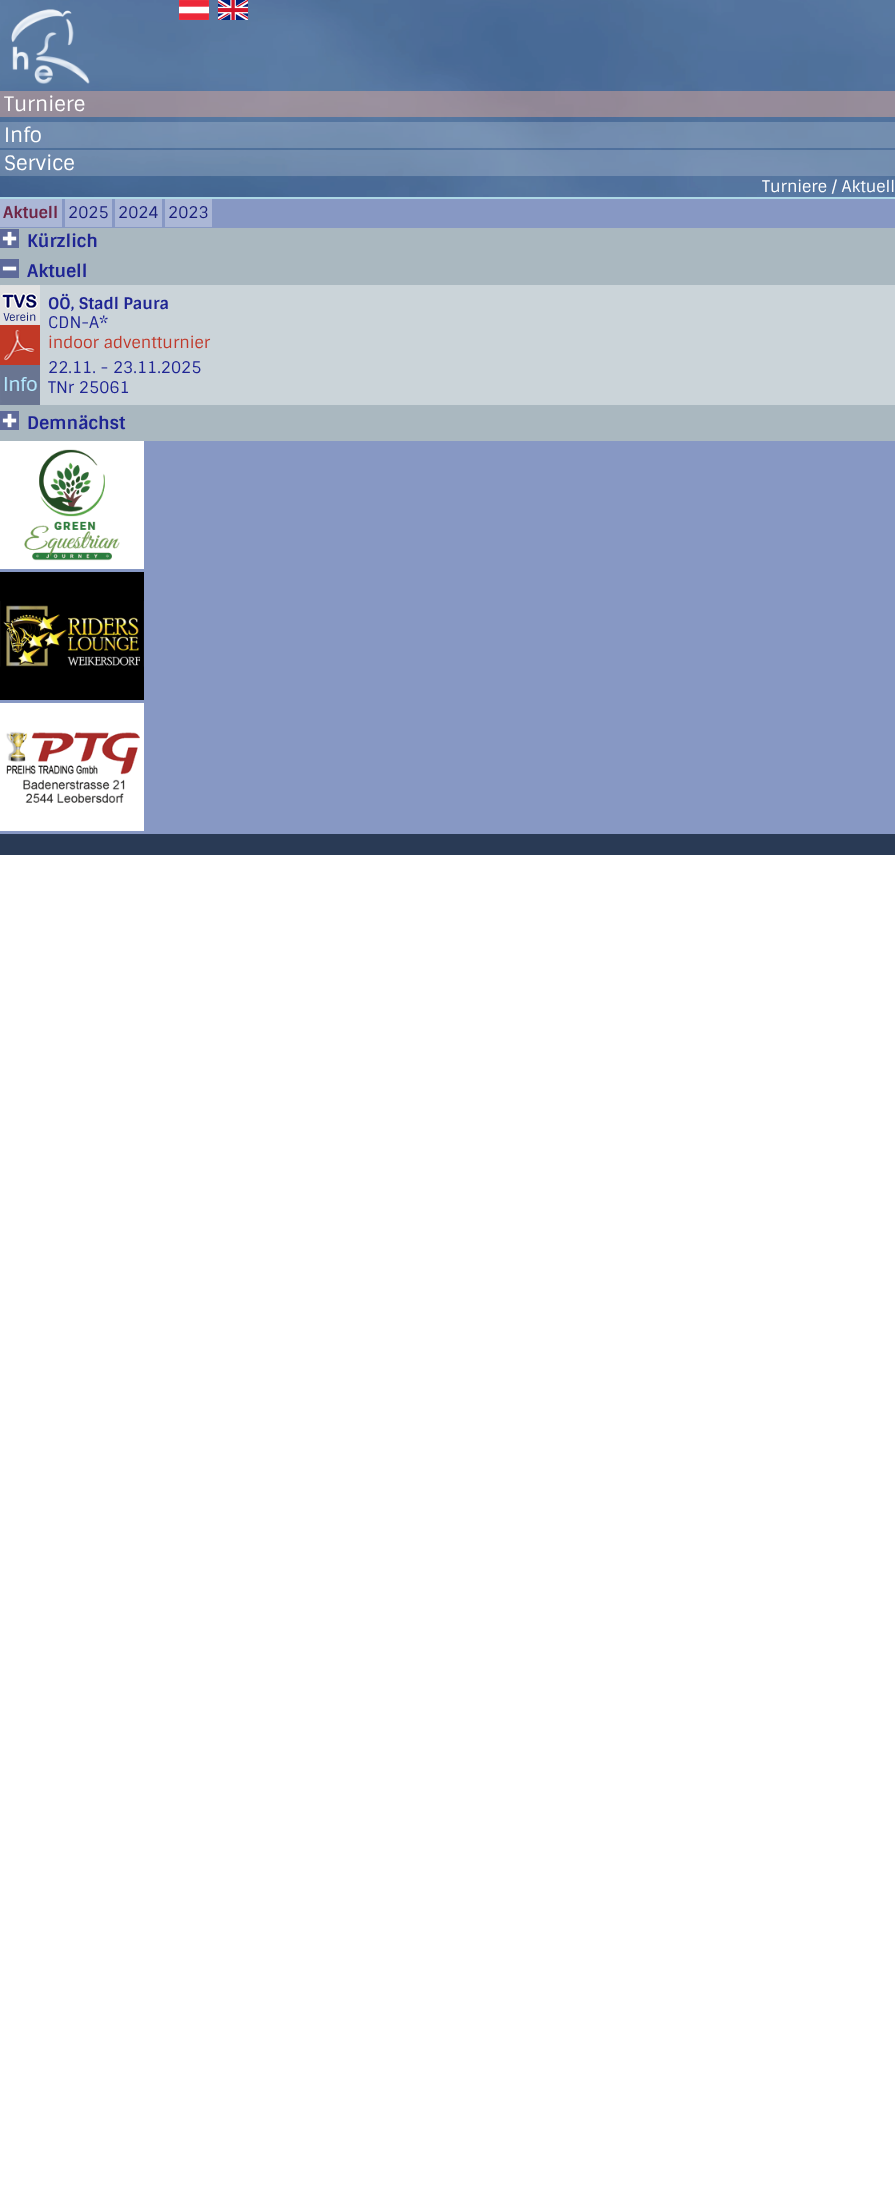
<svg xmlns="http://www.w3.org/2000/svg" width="895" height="2210">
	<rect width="100%" height="100%" fill="#FFFFFF" />
	<image x="0" y="0" width="895" height="197" href="assets/img1.png" />
	<image x="11" y="9" width="79" height="75" href="assets/img2.png" />
	<image x="179" y="0" width="30" height="20" href="assets/img3.png" />
	<image x="218" y="0" width="30" height="20" href="assets/img4.png" />
	<rect x="0" y="91" width="895" height="26" fill="#FFB496" fill-opacity="0.4" />
	<text x="4" y="111" font-family="Sintony" font-size="20" fill="#FFFFFF">Turniere</text>
	<rect x="0" y="122" width="895" height="26" fill="#FFFFFF" fill-opacity="0.2" />
	<text x="4" y="142" font-family="Sintony" font-size="20" fill="#FFFFFF">Info</text>
	<rect x="0" y="150" width="895" height="26" fill="#FFFFFF" fill-opacity="0.2" />
	<text x="4" y="170" font-family="Sintony" font-size="20" fill="#FFFFFF">Service</text>
	<text x="762" y="192" font-family="Sintony" font-size="16" fill="#FFFFFF">Turniere / Aktuell</text>
	<rect x="0" y="197" width="895" height="2" fill="#ADD8E6" />
	<rect x="0" y="228" width="895" height="213" fill="#AAB8C0" />
	<rect x="0" y="199" width="895" height="29" fill="#8798C4" />
	<rect x="0" y="199" width="62" height="28" fill="#ABB7D6" />
	<text x="3" y="218" font-family="Sintony" font-size="16" font-weight="700" fill="#6F2544">Aktuell</text>
	<rect x="65" y="199" width="47" height="28" fill="#ABB7D6" />
	<text x="68" y="218" font-family="Sintony" font-size="16" fill="#1A1F7B">2025</text>
	<rect x="115" y="199" width="47" height="28" fill="#ABB7D6" />
	<text x="118" y="218" font-family="Sintony" font-size="16" fill="#1A1F7B">2024</text>
	<rect x="165" y="199" width="47" height="28" fill="#ABB7D6" />
	<text x="168" y="218" font-family="Sintony" font-size="16" fill="#1A1F7B">2023</text>
	<image x="0" y="229" width="19" height="19" href="assets/img5.png" />
	<text x="27" y="247" font-family="Sintony" font-size="17.5" font-weight="700" fill="#1F2594">Kürzlich</text>
	<image x="0" y="259" width="19" height="19" href="assets/img6.png" />
	<text x="27" y="277" font-family="Sintony" font-size="17.5" font-weight="700" fill="#1F2594">Aktuell</text>
	<rect x="0" y="285" width="895" height="120" fill="#CBD4D9" />
	<image x="0" y="285" width="40" height="40" href="assets/img7.png" />
	<image x="0" y="325" width="40" height="40" href="assets/img8.png" />
	<image x="0" y="365" width="40" height="40" href="assets/img9.png" />
	<text x="48" y="309" font-family="Sintony" font-size="16" font-weight="700" fill="#1F2594">OÖ, Stadl Paura</text>
	<text x="48" y="328" font-family="Sintony" font-size="16" fill="#1F2594">CDN-A*</text>
	<text x="48" y="348" font-family="Sintony" font-size="16" fill="#C0392B">indoor adventturnier</text>
	<g font-family="Sintony" font-size="16" fill="#1F2594">
		<text x="48" y="373">22.11. - 23.11.2025</text>
		<text x="48" y="393">TNr 25061</text>
	</g>
	<image x="0" y="411" width="19" height="19" href="assets/img5.png" />
	<text x="27" y="429" font-family="Sintony" font-size="17.5" font-weight="700" fill="#1F2594">Demnächst</text>
	<rect x="0" y="441" width="895" height="393" fill="#8798C4" />
	<image x="0" y="441" width="144" height="128" href="assets/img10.png" />
	<image x="0" y="572" width="144" height="128" href="assets/img11.png" />
	<image x="0" y="703" width="144" height="128" href="assets/img12.png" />
	<rect x="0" y="834" width="895" height="21" fill="#293A55" />
</svg>
